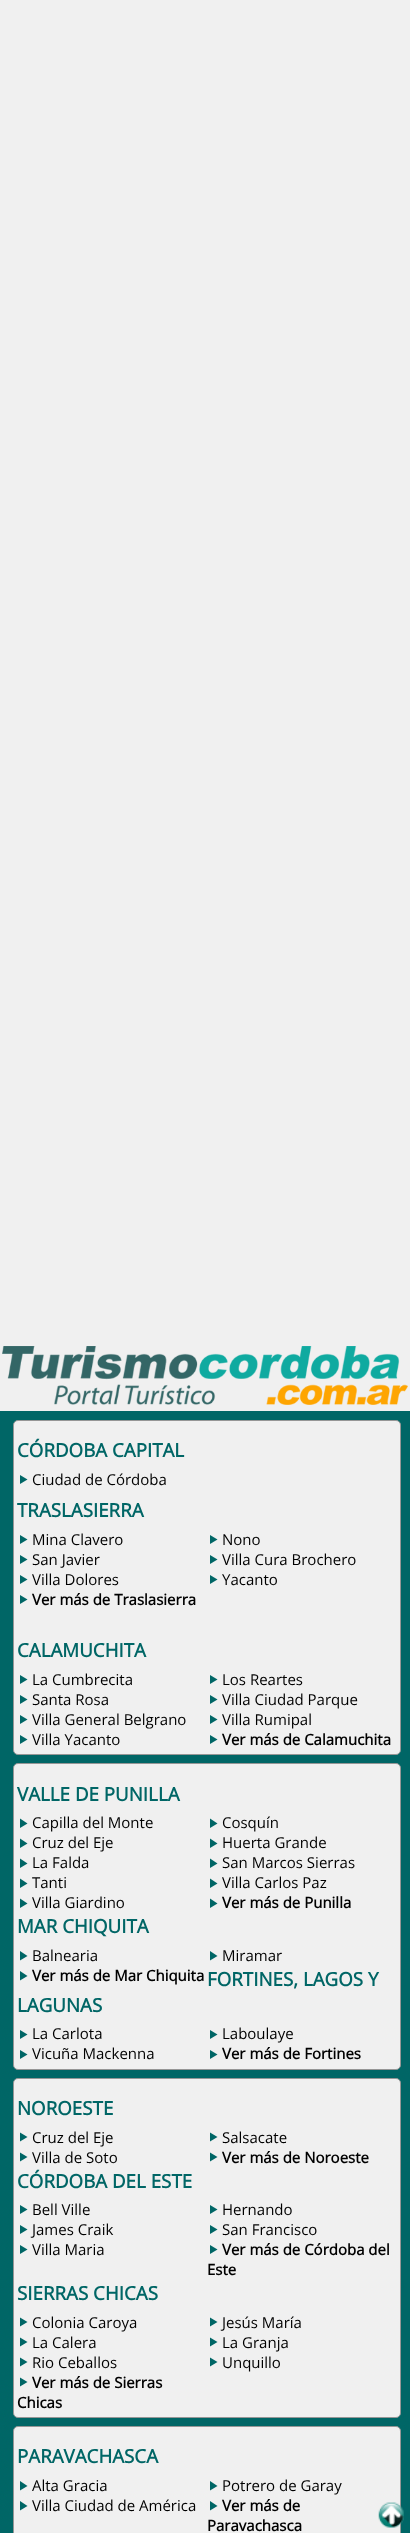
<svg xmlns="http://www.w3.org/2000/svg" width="410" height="2533">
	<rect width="100%" height="100%" fill="#F0F0F0" />
	<image x="2" y="1346" width="406" height="59" href="assets/img1.png" />
	<rect x="0" y="1411" width="410" height="1122" fill="#006666" />
	<rect x="13.5" y="1420.5" width="387" height="334" rx="4.5" fill="#F0F0F0" stroke="#969696" />
	<text x="17" y="1457" font-family="Open Sans" font-size="18.75" font-weight="700" fill="#006666">CÓRDOBA CAPITAL</text>
	<path d="M20 1475L27.5 1479.5L20 1484Z" fill="#006666" />
	<text x="32" y="1485" font-family="Open Sans" font-size="15" fill="#000000">Ciudad de Córdoba</text>
	<text x="17" y="1517" font-family="Open Sans" font-size="18.75" font-weight="700" fill="#006666">TRASLASIERRA</text>
	<path d="M20 1535L27.5 1539.5L20 1544Z" fill="#006666" />
	<text x="32" y="1545" font-family="Open Sans" font-size="15" fill="#000000">Mina Clavero</text>
	<path d="M210 1535L217.5 1539.5L210 1544Z" fill="#006666" />
	<text x="222" y="1545" font-family="Open Sans" font-size="15" fill="#000000">Nono</text>
	<path d="M20 1555L27.5 1559.5L20 1564Z" fill="#006666" />
	<text x="32" y="1565" font-family="Open Sans" font-size="15" fill="#000000">San Javier</text>
	<path d="M210 1555L217.5 1559.5L210 1564Z" fill="#006666" />
	<text x="222" y="1565" font-family="Open Sans" font-size="15" fill="#000000">Villa Cura Brochero</text>
	<path d="M20 1575L27.5 1579.5L20 1584Z" fill="#006666" />
	<text x="32" y="1585" font-family="Open Sans" font-size="15" fill="#000000">Villa Dolores</text>
	<path d="M210 1575L217.5 1579.5L210 1584Z" fill="#006666" />
	<text x="222" y="1585" font-family="Open Sans" font-size="15" fill="#000000">Yacanto</text>
	<path d="M20 1595L27.5 1599.5L20 1604Z" fill="#006666" />
	<text x="32" y="1605" font-family="Open Sans" font-size="15" font-weight="700" fill="#000000">Ver más de Traslasierra</text>
	<text x="17" y="1657" font-family="Open Sans" font-size="18.75" font-weight="700" fill="#006666">CALAMUCHITA</text>
	<path d="M20 1675L27.5 1679.5L20 1684Z" fill="#006666" />
	<text x="32" y="1685" font-family="Open Sans" font-size="15" fill="#000000">La Cumbrecita</text>
	<path d="M210 1675L217.5 1679.5L210 1684Z" fill="#006666" />
	<text x="222" y="1685" font-family="Open Sans" font-size="15" fill="#000000">Los Reartes</text>
	<path d="M20 1695L27.5 1699.5L20 1704Z" fill="#006666" />
	<text x="32" y="1705" font-family="Open Sans" font-size="15" fill="#000000">Santa Rosa</text>
	<path d="M210 1695L217.5 1699.5L210 1704Z" fill="#006666" />
	<text x="222" y="1705" font-family="Open Sans" font-size="15" fill="#000000">Villa Ciudad Parque</text>
	<path d="M20 1715L27.5 1719.5L20 1724Z" fill="#006666" />
	<text x="32" y="1725" font-family="Open Sans" font-size="15" fill="#000000">Villa General Belgrano</text>
	<path d="M210 1715L217.5 1719.5L210 1724Z" fill="#006666" />
	<text x="222" y="1725" font-family="Open Sans" font-size="15" fill="#000000">Villa Rumipal</text>
	<path d="M20 1735L27.5 1739.5L20 1744Z" fill="#006666" />
	<text x="32" y="1745" font-family="Open Sans" font-size="15" fill="#000000">Villa Yacanto</text>
	<path d="M210 1735L217.5 1739.5L210 1744Z" fill="#006666" />
	<text x="222" y="1745" font-family="Open Sans" font-size="15" font-weight="700" fill="#000000">Ver más de Calamuchita</text>
	<rect x="13.5" y="1763.5" width="387" height="306" rx="4.5" fill="#F0F0F0" stroke="#969696" />
	<text x="17" y="1801" font-family="Open Sans" font-size="18.75" font-weight="700" fill="#006666">VALLE DE PUNILLA</text>
	<path d="M20 1818.5L27.5 1823.5L20 1828Z" fill="#006666" />
	<text x="32" y="1828" font-family="Open Sans" font-size="15" fill="#000000">Capilla del Monte</text>
	<path d="M210 1818.5L217.5 1823.5L210 1828Z" fill="#006666" />
	<text x="222" y="1828" font-family="Open Sans" font-size="15" fill="#000000">Cosquín</text>
	<path d="M20 1838.5L27.5 1843.5L20 1848Z" fill="#006666" />
	<text x="32" y="1848" font-family="Open Sans" font-size="15" fill="#000000">Cruz del Eje</text>
	<path d="M210 1838.5L217.5 1843.5L210 1848Z" fill="#006666" />
	<text x="222" y="1848" font-family="Open Sans" font-size="15" fill="#000000">Huerta Grande</text>
	<path d="M20 1858.5L27.5 1863.5L20 1868Z" fill="#006666" />
	<text x="32" y="1868" font-family="Open Sans" font-size="15" fill="#000000">La Falda</text>
	<path d="M210 1858.5L217.5 1863.5L210 1868Z" fill="#006666" />
	<text x="222" y="1868" font-family="Open Sans" font-size="15" fill="#000000">San Marcos Sierras</text>
	<path d="M20 1878.5L27.5 1883.5L20 1888Z" fill="#006666" />
	<text x="32" y="1888" font-family="Open Sans" font-size="15" fill="#000000">Tanti</text>
	<path d="M210 1878.5L217.5 1883.5L210 1888Z" fill="#006666" />
	<text x="222" y="1888" font-family="Open Sans" font-size="15" fill="#000000">Villa Carlos Paz</text>
	<path d="M20 1898.5L27.5 1903.5L20 1908Z" fill="#006666" />
	<text x="32" y="1908" font-family="Open Sans" font-size="15" fill="#000000">Villa Giardino</text>
	<path d="M210 1898.5L217.5 1903.5L210 1908Z" fill="#006666" />
	<text x="222" y="1908" font-family="Open Sans" font-size="15" font-weight="700" fill="#000000">Ver más de Punilla</text>
	<text x="17" y="1933" font-family="Open Sans" font-size="18.75" font-weight="700" fill="#006666">MAR CHIQUITA</text>
	<path d="M20 1951L27.5 1956L20 1960.5Z" fill="#006666" />
	<text x="32" y="1961" font-family="Open Sans" font-size="15" fill="#000000">Balnearia</text>
	<path d="M210 1951L217.5 1956L210 1960.5Z" fill="#006666" />
	<text x="222" y="1961" font-family="Open Sans" font-size="15" fill="#000000">Miramar</text>
	<path d="M20 1971L27.5 1976L20 1980.5Z" fill="#006666" />
	<text x="32" y="1981" font-family="Open Sans" font-size="15" font-weight="700" fill="#000000">Ver más de Mar Chiquita</text>
	<g font-family="Open Sans" font-size="18.75" font-weight="700" fill="#006666">
		<text x="207" y="1986">FORTINES, LAGOS Y</text>
		<text x="17" y="2012">LAGUNAS</text>
	</g>
	<path d="M20 2030L27.5 2034.5L20 2039Z" fill="#006666" />
	<text x="32" y="2039" font-family="Open Sans" font-size="15" fill="#000000">La Carlota</text>
	<path d="M210 2030L217.5 2034.5L210 2039Z" fill="#006666" />
	<text x="222" y="2039" font-family="Open Sans" font-size="15" fill="#000000">Laboulaye</text>
	<path d="M20 2050L27.5 2054.5L20 2059Z" fill="#006666" />
	<text x="32" y="2059" font-family="Open Sans" font-size="15" fill="#000000">Vicuña Mackenna</text>
	<path d="M210 2050L217.5 2054.5L210 2059Z" fill="#006666" />
	<text x="222" y="2059" font-family="Open Sans" font-size="15" font-weight="700" fill="#000000">Ver más de Fortines</text>
	<rect x="13.5" y="2078.5" width="387" height="339" rx="4.5" fill="#F0F0F0" stroke="#969696" />
	<text x="17" y="2115" font-family="Open Sans" font-size="18.75" font-weight="700" fill="#006666">NOROESTE</text>
	<path d="M20 2132.5L27.5 2137L20 2141.5Z" fill="#006666" />
	<text x="32" y="2143" font-family="Open Sans" font-size="15" fill="#000000">Cruz del Eje</text>
	<path d="M210 2132.5L217.5 2137L210 2141.5Z" fill="#006666" />
	<text x="222" y="2143" font-family="Open Sans" font-size="15" fill="#000000">Salsacate</text>
	<path d="M20 2152.5L27.5 2157L20 2161.5Z" fill="#006666" />
	<text x="32" y="2163" font-family="Open Sans" font-size="15" fill="#000000">Villa de Soto</text>
	<path d="M210 2152.5L217.5 2157L210 2161.5Z" fill="#006666" />
	<text x="222" y="2163" font-family="Open Sans" font-size="15" font-weight="700" fill="#000000">Ver más de Noroeste</text>
	<text x="17" y="2188" font-family="Open Sans" font-size="18.75" font-weight="700" fill="#006666">CÓRDOBA DEL ESTE</text>
	<path d="M20 2205L27.5 2209.5L20 2214Z" fill="#006666" />
	<text x="32" y="2215" font-family="Open Sans" font-size="15" fill="#000000">Bell Ville</text>
	<path d="M210 2205L217.5 2209.5L210 2214Z" fill="#006666" />
	<text x="222" y="2215" font-family="Open Sans" font-size="15" fill="#000000">Hernando</text>
	<path d="M20 2225L27.5 2229.5L20 2234Z" fill="#006666" />
	<text x="32" y="2235" font-family="Open Sans" font-size="15" fill="#000000">James Craik</text>
	<path d="M210 2225L217.5 2229.5L210 2234Z" fill="#006666" />
	<text x="222" y="2235" font-family="Open Sans" font-size="15" fill="#000000">San Francisco</text>
	<path d="M20 2245L27.5 2249.5L20 2254Z" fill="#006666" />
	<text x="32" y="2255" font-family="Open Sans" font-size="15" fill="#000000">Villa Maria</text>
	<path d="M210 2245L217.5 2249.5L210 2254Z" fill="#006666" />
	<g font-family="Open Sans" font-size="15" font-weight="700" fill="#000000">
		<text x="222" y="2255">Ver más de Córdoba del</text>
		<text x="207" y="2275">Este</text>
	</g>
	<text x="17" y="2300" font-family="Open Sans" font-size="18.75" font-weight="700" fill="#006666">SIERRAS CHICAS</text>
	<path d="M20 2317.5L27.5 2322L20 2326.5Z" fill="#006666" />
	<text x="32" y="2328" font-family="Open Sans" font-size="15" fill="#000000">Colonia Caroya</text>
	<path d="M210 2317.5L217.5 2322L210 2326.5Z" fill="#006666" />
	<text x="222" y="2328" font-family="Open Sans" font-size="15" fill="#000000">Jesús María</text>
	<path d="M20 2337.5L27.5 2342L20 2346.5Z" fill="#006666" />
	<text x="32" y="2348" font-family="Open Sans" font-size="15" fill="#000000">La Calera</text>
	<path d="M210 2337.5L217.5 2342L210 2346.5Z" fill="#006666" />
	<text x="222" y="2348" font-family="Open Sans" font-size="15" fill="#000000">La Granja</text>
	<path d="M20 2357.5L27.5 2362L20 2366.5Z" fill="#006666" />
	<text x="32" y="2368" font-family="Open Sans" font-size="15" fill="#000000">Rio Ceballos</text>
	<path d="M210 2357.5L217.5 2362L210 2366.5Z" fill="#006666" />
	<text x="222" y="2368" font-family="Open Sans" font-size="15" fill="#000000">Unquillo</text>
	<path d="M20 2377.5L27.5 2382L20 2386.5Z" fill="#006666" />
	<g font-family="Open Sans" font-size="15" font-weight="700" fill="#000000">
		<text x="32" y="2388">Ver más de Sierras</text>
		<text x="17" y="2408">Chicas</text>
	</g>
	<rect x="13.5" y="2426.5" width="387" height="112" rx="4.5" fill="#F0F0F0" stroke="#969696" />
	<text x="17" y="2463" font-family="Open Sans" font-size="18.75" font-weight="700" fill="#006666">PARAVACHASCA</text>
	<path d="M20 2481L27.5 2486L20 2490.5Z" fill="#006666" />
	<text x="32" y="2491" font-family="Open Sans" font-size="15" fill="#000000">Alta Gracia</text>
	<path d="M210 2481L217.5 2486L210 2490.5Z" fill="#006666" />
	<text x="222" y="2491" font-family="Open Sans" font-size="15" fill="#000000">Potrero de Garay</text>
	<path d="M20 2501L27.5 2506L20 2510.5Z" fill="#006666" />
	<text x="32" y="2511" font-family="Open Sans" font-size="15" fill="#000000">Villa Ciudad de América</text>
	<path d="M210 2501L217.5 2506L210 2510.5Z" fill="#006666" />
	<g font-family="Open Sans" font-size="15" font-weight="700" fill="#000000">
		<text x="222" y="2511">Ver más de</text>
		<text x="207" y="2531">Paravachasca</text>
	</g>
	<image x="378" y="2502" width="26" height="26" href="assets/img2.png" />
</svg>
